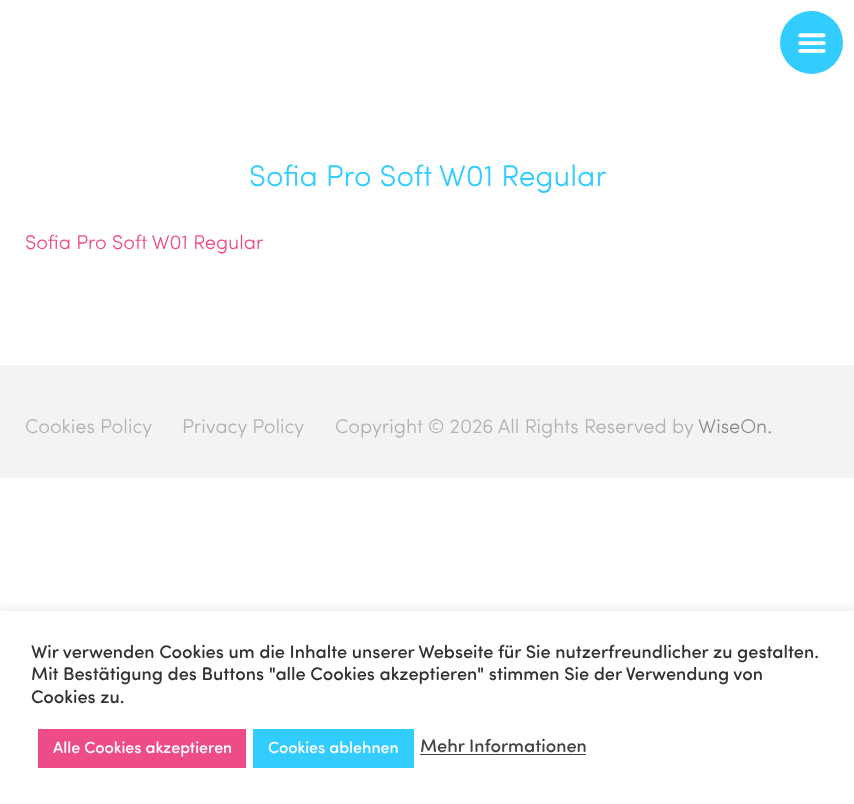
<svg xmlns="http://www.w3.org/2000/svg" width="854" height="804">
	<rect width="100%" height="100%" fill="#FFFFFF" />
	<circle cx="811.5" cy="42.5" r="31.5" fill="#33CCFF" />
	<image x="798" y="33" width="28" height="20" href="assets/img1.png" />
	<text x="249" y="186" font-family="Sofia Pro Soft" font-size="30" font-weight="300" fill="#33CCFF">Sofia Pro Soft W01 Regular</text>
	<text x="25" y="249" font-family="Sofia Pro Soft" font-size="20" font-weight="300" fill="#EE4C88">Sofia Pro Soft W01 Regular</text>
	<rect x="0" y="365" width="854" height="113" fill="#F3F3F3" />
	<g font-family="Sofia Pro Soft" font-size="20" font-weight="300" fill="#B2B2B2">
		<text x="25" y="433">Cookies Policy</text>
		<text x="182" y="433">Privacy Policy</text>
		<text x="335" y="433">Copyright © 2026 All Rights Reserved by</text>
	</g>
	<text x="698" y="433" font-family="Sofia Pro Soft" font-size="20" font-weight="300" fill="#8C8C8C">WiseOn.</text>
	<rect x="0" y="610" width="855" height="194" fill="#ACABAB" fill-opacity="0.3" filter="blur(6px)" />
	<rect x="0" y="611" width="854" height="193" fill="#FFFFFF" />
	<g font-family="Sofia Pro Soft" font-size="18.35" font-weight="500" fill="#333333">
		<text x="31" y="658">Wir verwenden Cookies um die Inhalte unserer Webseite für Sie nutzerfreundlicher zu gestalten.</text>
		<text x="31" y="680">Mit Bestätigung des Buttons "alle Cookies akzeptieren" stimmen Sie der Verwendung von</text>
		<text x="31" y="703">Cookies zu.</text>
	</g>
	<rect x="38" y="729" width="208" height="39" fill="#EE4C88" />
	<text x="53" y="753" font-family="Sofia Pro Soft" font-size="16.25" font-weight="500" fill="#FFFFFF">Alle Cookies akzeptieren</text>
	<rect x="253" y="729" width="161" height="39" fill="#33CCFF" />
	<text x="268" y="753" font-family="Sofia Pro Soft" font-size="16.25" font-weight="500" fill="#FFFFFF">Cookies ablehnen</text>
	<text x="420" y="752" font-family="Sofia Pro Soft" font-size="18.35" font-weight="500" fill="#444444">Mehr Informationen</text>
	<rect x="420" y="754" width="166" height="1" fill="#444444" />
</svg>
